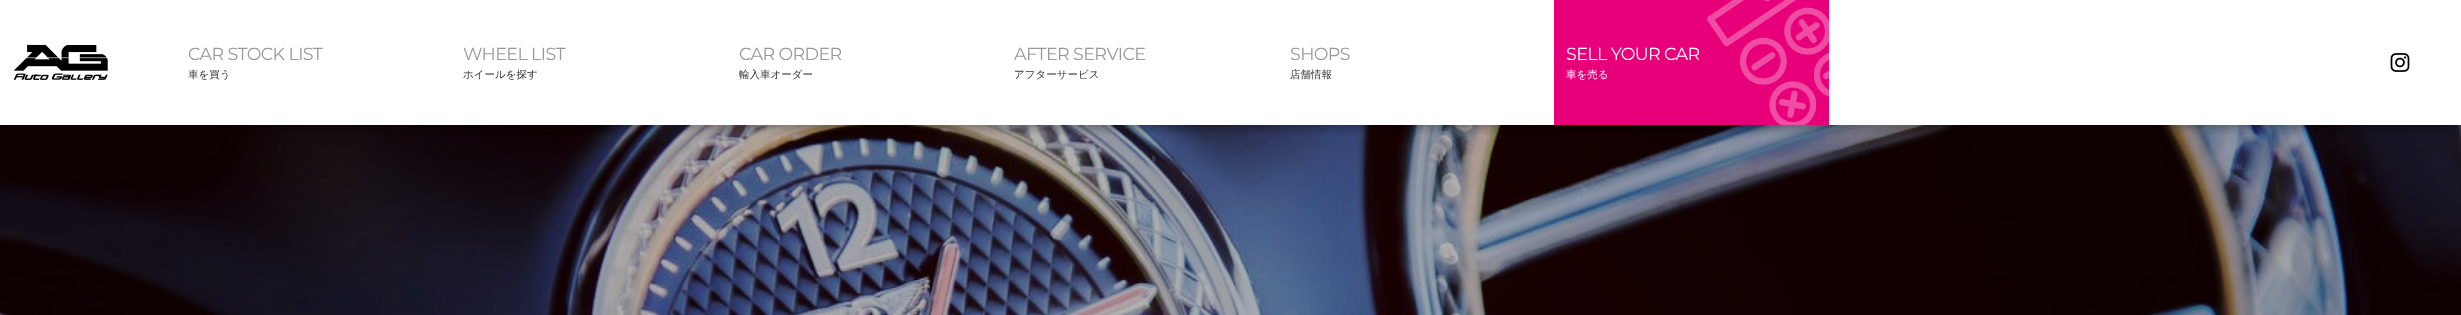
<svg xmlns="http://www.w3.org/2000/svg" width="2461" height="315">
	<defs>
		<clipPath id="clip1"><rect x="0" y="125" width="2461" height="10" /></clipPath>
	</defs>
	<rect width="100%" height="100%" fill="#FFFFFF" />
	<image x="0" y="125" width="2461" height="190" href="assets/img4.png" />
	<g clip-path="url(#clip1)">
		<rect x="0" y="3" width="2461" height="125" fill="#000000" fill-opacity="0.3" filter="blur(5px)" />
	</g>
	<image x="13" y="44" width="95" height="36" href="assets/img1.png" />
	<image x="2390" y="53" width="20" height="19" href="assets/img2.png" />
	<text x="188" y="60" font-family="Montserrat" font-size="17.5" letter-spacing="-0.6" fill="#999999">CAR STOCK LIST</text>
	<text x="188" y="78" font-family="WenQuanYi Zen Hei" font-size="10.5" font-weight="500" fill="#333333">車を買う</text>
	<text x="463" y="60" font-family="Montserrat" font-size="17.5" letter-spacing="-0.6" fill="#999999">WHEEL LIST</text>
	<text x="463" y="78" font-family="WenQuanYi Zen Hei" font-size="10.5" font-weight="500" fill="#333333">ホイールを探す</text>
	<text x="739" y="60" font-family="Montserrat" font-size="17.5" letter-spacing="-0.6" fill="#999999">CAR ORDER</text>
	<text x="739" y="78" font-family="WenQuanYi Zen Hei" font-size="10.5" font-weight="500" fill="#333333">輸入車オーダー</text>
	<text x="1014" y="60" font-family="Montserrat" font-size="17.5" letter-spacing="-0.6" fill="#999999">AFTER SERVICE</text>
	<text x="1014" y="78" font-family="WenQuanYi Zen Hei" font-size="10.5" font-weight="500" fill="#333333">アフターサービス</text>
	<text x="1290" y="60" font-family="Montserrat" font-size="17.5" letter-spacing="-0.6" fill="#999999">SHOPS</text>
	<text x="1290" y="78" font-family="WenQuanYi Zen Hei" font-size="10.5" font-weight="500" fill="#333333">店舗情報</text>
	<rect x="1554" y="0" width="275" height="125" fill="#E8007B" />
	<image x="1707" y="0" width="122" height="125" href="assets/img3.png" />
	<text x="1566" y="60" font-family="Montserrat" font-size="17.5" letter-spacing="-0.6" fill="#FFFFFF">SELL YOUR CAR</text>
	<text x="1566" y="78" font-family="WenQuanYi Zen Hei" font-size="10.5" font-weight="500" fill="#FFFFFF">車を売る</text>
</svg>
